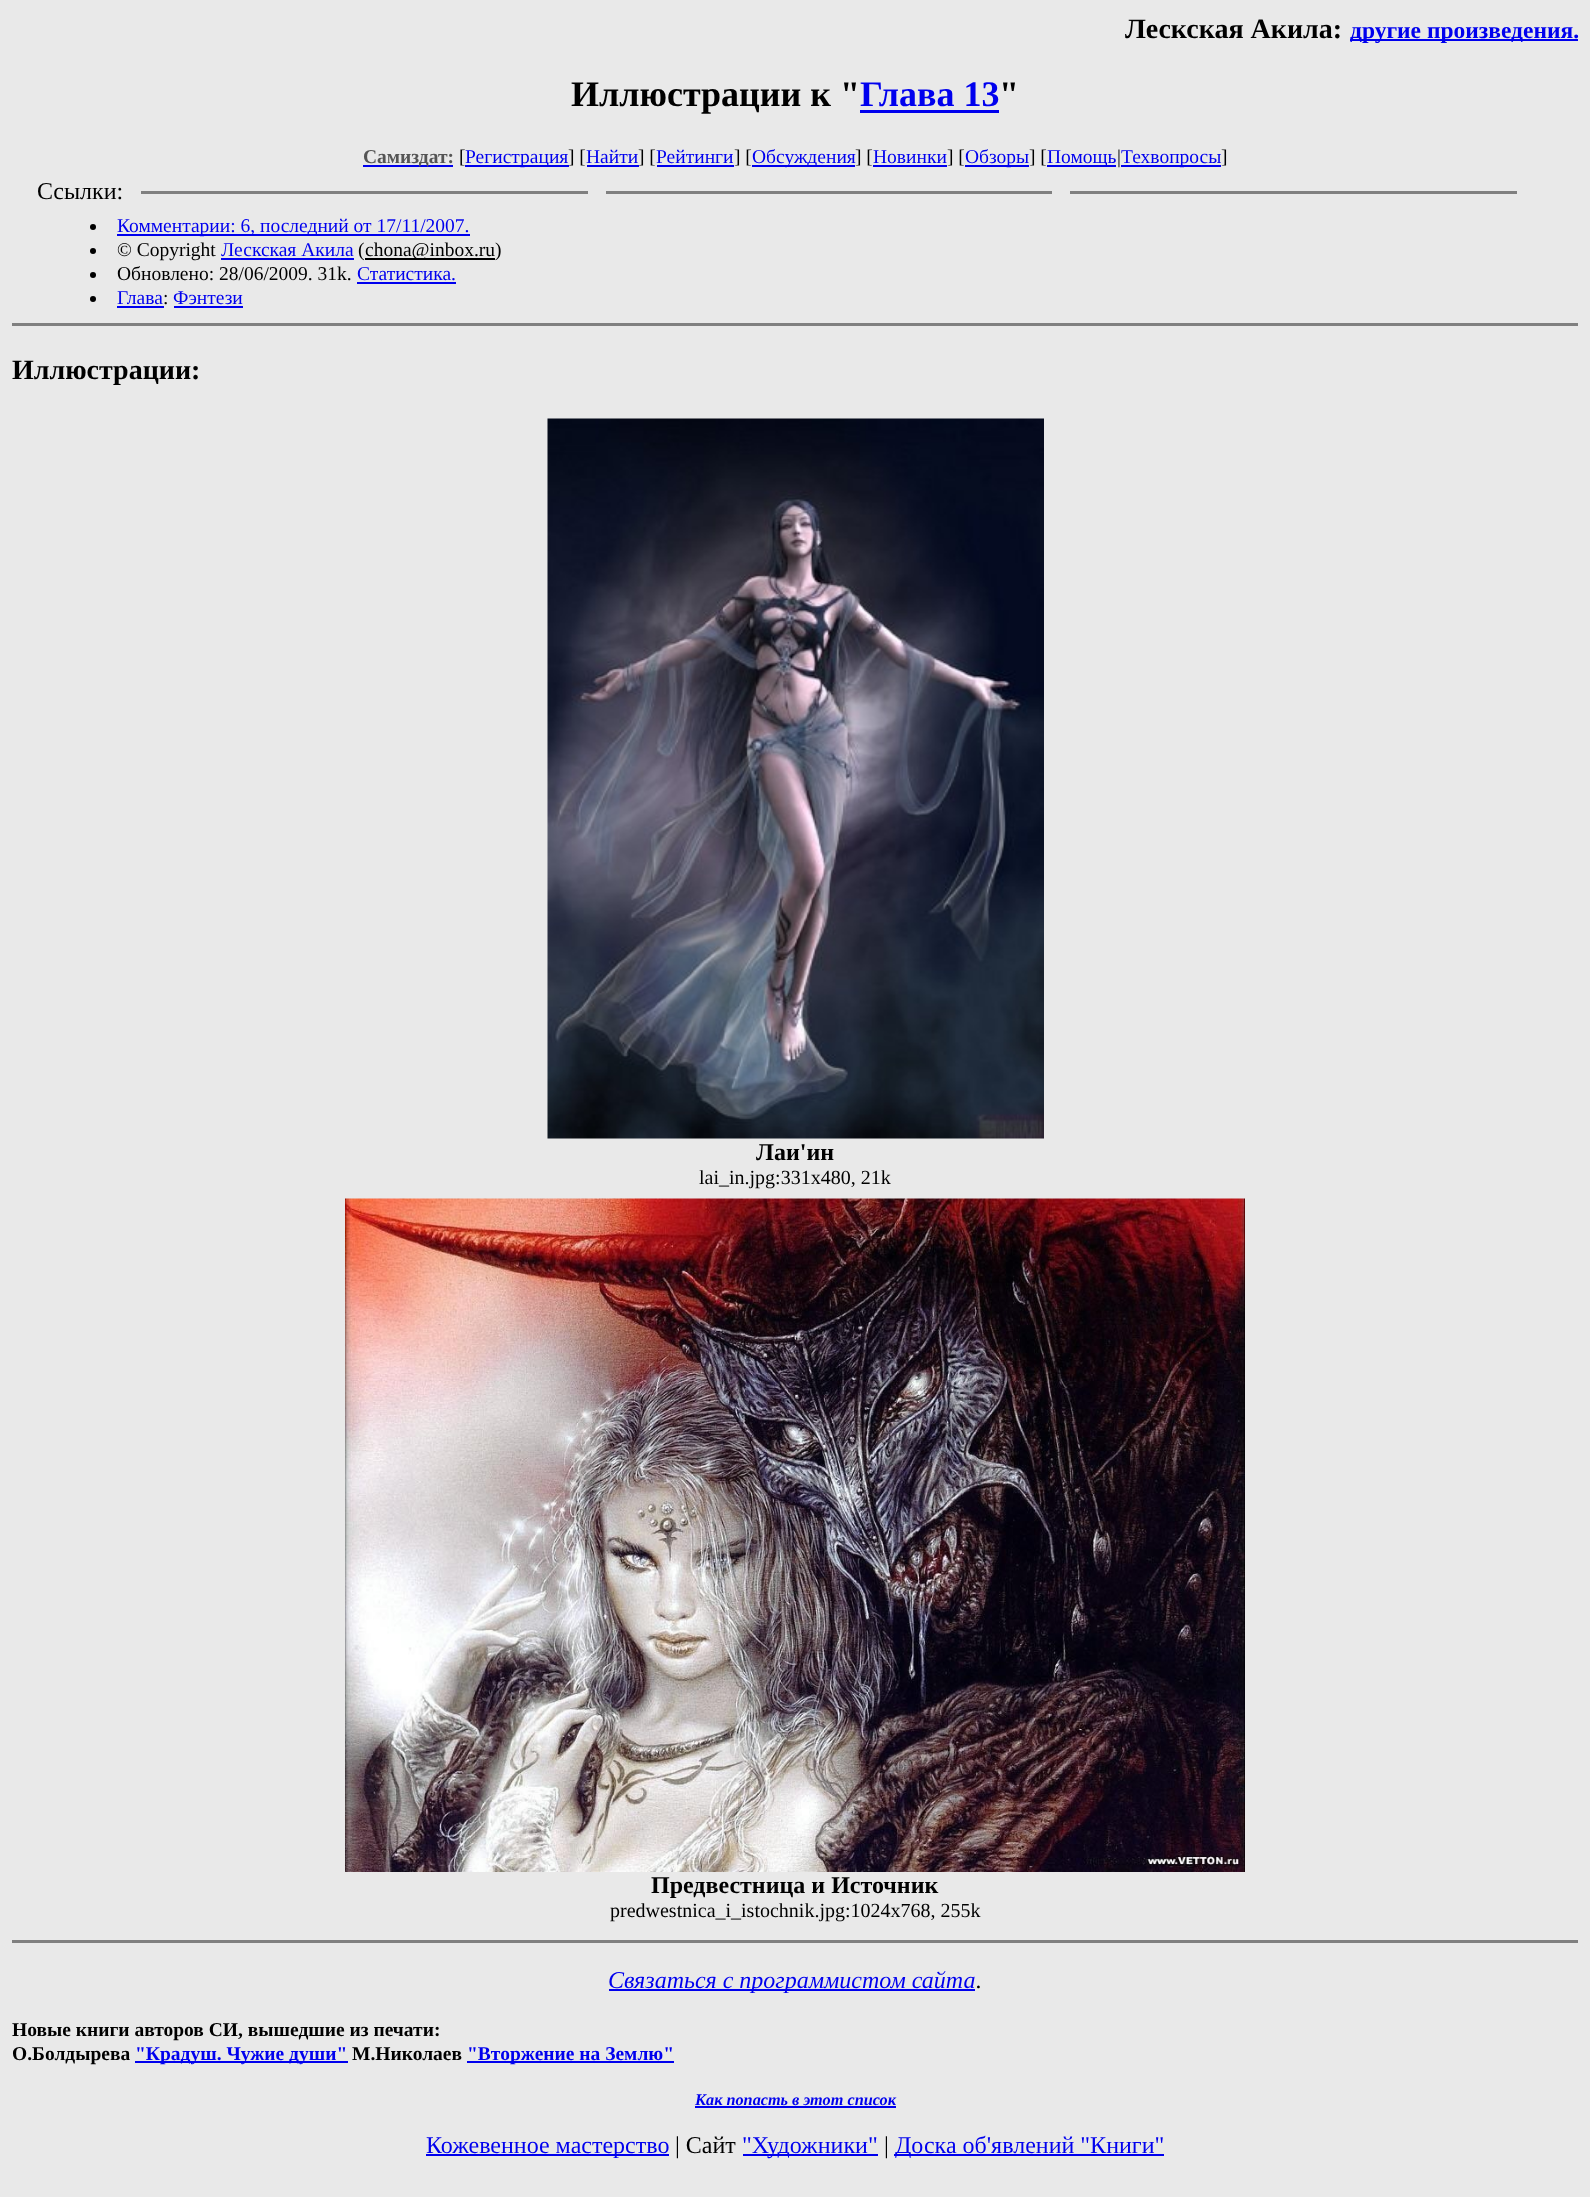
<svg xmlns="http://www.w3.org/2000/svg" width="1590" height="2197">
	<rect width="100%" height="100%" fill="#E9E9E9" />
	<text x="1125" y="38" font-family="Liberation Serif" font-size="28" font-weight="700" fill="#000000">Лескская Акила:</text>
	<rect x="1350" y="39" width="228" height="2" fill="#0000EE" />
	<text x="1350" y="38" font-family="Liberation Serif" font-size="23.5" font-weight="700" fill="#0000EE">другие произведения.</text>
	<text x="571" y="106" font-family="Liberation Serif" font-size="36" font-weight="700" fill="#000000">Иллюстрации к "</text>
	<text x="860" y="106" font-family="Liberation Serif" font-size="36" font-weight="700" fill="#0000EE">Глава 13</text>
	<rect x="860" y="110" width="139" height="3" fill="#0000EE" />
	<text x="999" y="106" font-family="Liberation Serif" font-size="36" font-weight="700" fill="#000000">"</text>
	<rect x="363" y="165" width="90" height="2" fill="#0000EE" />
	<text x="363" y="163" font-family="Liberation Serif" font-size="19.5" font-weight="700" fill="#555555">Самиздат:</text>
	<text x="459" y="163" font-family="Liberation Serif" font-size="19.5" fill="#000000">[</text>
	<rect x="465" y="165" width="104" height="2" fill="#0000EE" />
	<text x="465" y="163" font-family="Liberation Serif" font-size="19.5" fill="#0000EE">Регистрация</text>
	<text x="568" y="163" font-family="Liberation Serif" font-size="19.5" fill="#000000">] [</text>
	<text x="586" y="163" font-family="Liberation Serif" font-size="19.5" fill="#0000EE">Найти</text>
	<text x="638" y="163" font-family="Liberation Serif" font-size="19.5" fill="#000000">] [</text>
	<rect x="587" y="165" width="52" height="2" fill="#0000EE" />
	<text x="656" y="163" font-family="Liberation Serif" font-size="19.5" fill="#0000EE">Рейтинги</text>
	<text x="734" y="163" font-family="Liberation Serif" font-size="19.5" fill="#000000">] [</text>
	<rect x="657" y="165" width="77" height="2" fill="#0000EE" />
	<rect x="752" y="165" width="103" height="2" fill="#0000EE" />
	<text x="752" y="163" font-family="Liberation Serif" font-size="19.5" fill="#0000EE">Обсуждения</text>
	<text x="855" y="163" font-family="Liberation Serif" font-size="19.5" fill="#000000">] [</text>
	<rect x="873" y="165" width="74" height="2" fill="#0000EE" />
	<text x="873" y="163" font-family="Liberation Serif" font-size="19.5" fill="#0000EE">Новинки</text>
	<text x="947" y="163" font-family="Liberation Serif" font-size="19.5" fill="#000000">] [</text>
	<rect x="965" y="165" width="64" height="2" fill="#0000EE" />
	<text x="965" y="163" font-family="Liberation Serif" font-size="19.5" fill="#0000EE">Обзоры</text>
	<text x="1029" y="163" font-family="Liberation Serif" font-size="19.5" fill="#000000">] [</text>
	<rect x="1047" y="165" width="69" height="2" fill="#0000EE" />
	<text x="1047" y="163" font-family="Liberation Serif" font-size="19.5" fill="#0000EE">Помощь</text>
	<text x="1117" y="163" font-family="Liberation Serif" font-size="19.5" fill="#000000">|</text>
	<rect x="1121" y="165" width="100" height="2" fill="#0000EE" />
	<text x="1121" y="163" font-family="Liberation Serif" font-size="19.5" fill="#0000EE">Техвопросы</text>
	<text x="1221" y="163" font-family="Liberation Serif" font-size="19.5" fill="#000000">]</text>
	<text x="37" y="199" font-family="Liberation Serif" font-size="24" fill="#000000">Ссылки:</text>
	<rect x="141" y="191" width="447" height="3" fill="#808080" />
	<rect x="606" y="191" width="446" height="3" fill="#808080" />
	<rect x="1070" y="191" width="447" height="3" fill="#808080" />
	<circle cx="93" cy="227" r="3" fill="#000000" />
	<rect x="117" y="234" width="353" height="2" fill="#0000EE" />
	<text x="117" y="232" font-family="Liberation Serif" font-size="19.5" fill="#0000EE">Комментарии: 6, последний от 17/11/2007.</text>
	<circle cx="93" cy="251" r="3" fill="#000000" />
	<text x="117" y="256" font-family="Liberation Serif" font-size="19.5" fill="#000000">© Copyright</text>
	<text x="221" y="256" font-family="Liberation Serif" font-size="19.5" fill="#0000EE">Лескская Акила</text>
	<rect x="221" y="258" width="133" height="2" fill="#0000EE" />
	<text x="358" y="256" font-family="Liberation Serif" font-size="19.5" fill="#000000">(</text>
	<rect x="365" y="258" width="130" height="2" fill="#000000" />
	<text x="365" y="256" font-family="Liberation Serif" font-size="19.5" fill="#000000">chona@inbox.ru)</text>
	<circle cx="93" cy="275" r="3" fill="#000000" />
	<text x="117" y="280" font-family="Liberation Serif" font-size="19.5" fill="#000000">Обновлено: 28/06/2009. 31k.</text>
	<text x="357" y="280" font-family="Liberation Serif" font-size="19.5" fill="#0000EE">Статистика.</text>
	<rect x="357" y="282" width="99" height="2" fill="#0000EE" />
	<circle cx="93" cy="299" r="3" fill="#000000" />
	<text x="117" y="304" font-family="Liberation Serif" font-size="19.5" fill="#0000EE">Глава</text>
	<rect x="117" y="306" width="47" height="2" fill="#0000EE" />
	<text x="163" y="304" font-family="Liberation Serif" font-size="19.5" fill="#000000">:</text>
	<text x="173" y="304" font-family="Liberation Serif" font-size="19.5" fill="#0000EE">Фэнтези</text>
	<rect x="174" y="306" width="69" height="2" fill="#0000EE" />
	<rect x="12" y="323" width="1566" height="3" fill="#808080" />
	<text x="12" y="379" font-family="Liberation Serif" font-size="28" font-weight="700" fill="#000000">Иллюстрации:</text>
	<image x="547" y="418" width="497" height="721" href="assets/img1.png" />
	<text x="756" y="1160" font-family="Liberation Serif" font-size="24" font-weight="700" fill="#000000">Лаи'ин</text>
	<text x="699" y="1184" font-family="Liberation Serif" font-size="20" fill="#000000">lai_in.jpg:331x480, 21k</text>
	<image x="345" y="1198" width="900" height="674" href="assets/img2.png" />
	<text x="651" y="1893" font-family="Liberation Serif" font-size="24" font-weight="700" fill="#000000">Предвестница и Источник</text>
	<text x="610" y="1917" font-family="Liberation Serif" font-size="20" fill="#000000">predwestnica_i_istochnik.jpg:1024x768, 255k</text>
	<rect x="12" y="1940" width="1566" height="3" fill="#808080" />
	<rect x="609" y="1989" width="366" height="2" fill="#0000EE" />
	<text x="608" y="1988" font-family="Liberation Serif" font-size="24" font-style="italic" fill="#0000EE">Связаться с программистом сайта</text>
	<text x="976" y="1988" font-family="Liberation Serif" font-size="24" font-style="italic" fill="#000000">.</text>
	<g font-family="Liberation Serif" font-size="19.5" font-weight="700" fill="#000000">
		<text x="12" y="2036">Новые книги авторов СИ, вышедшие из печати:</text>
		<text x="12" y="2060">О.Болдырева</text>
	</g>
	<rect x="135" y="2061" width="213" height="2" fill="#0000EE" />
	<text x="135" y="2060" font-family="Liberation Serif" font-size="19.5" font-weight="700" fill="#0000EE">"Крадуш. Чужие души"</text>
	<text x="352" y="2060" font-family="Liberation Serif" font-size="19.5" font-weight="700" fill="#000000">М.Николаев</text>
	<rect x="467" y="2061" width="207" height="2" fill="#0000EE" />
	<text x="467" y="2060" font-family="Liberation Serif" font-size="19.5" font-weight="700" fill="#0000EE">"Вторжение на Землю"</text>
	<text x="695" y="2105" font-family="Liberation Serif" font-size="16.25" font-weight="700" font-style="italic" fill="#0000EE">Как попасть в этoт список</text>
	<rect x="695" y="2106" width="201" height="2" fill="#0000EE" />
	<rect x="426" y="2154" width="243" height="2" fill="#0000EE" />
	<text x="426" y="2153" font-family="Liberation Serif" font-size="24" fill="#0000EE">Кожевенное мастерство</text>
	<text x="675" y="2153" font-family="Liberation Serif" font-size="24" fill="#000000">| Сайт</text>
	<rect x="743" y="2154" width="135" height="2" fill="#0000EE" />
	<text x="742" y="2153" font-family="Liberation Serif" font-size="24" fill="#0000EE">"Художники"</text>
	<text x="884" y="2153" font-family="Liberation Serif" font-size="24" fill="#000000">|</text>
	<rect x="894" y="2154" width="270" height="2" fill="#0000EE" />
	<text x="895" y="2153" font-family="Liberation Serif" font-size="24" fill="#0000EE">Доска об'явлений "Книги"</text>
</svg>
